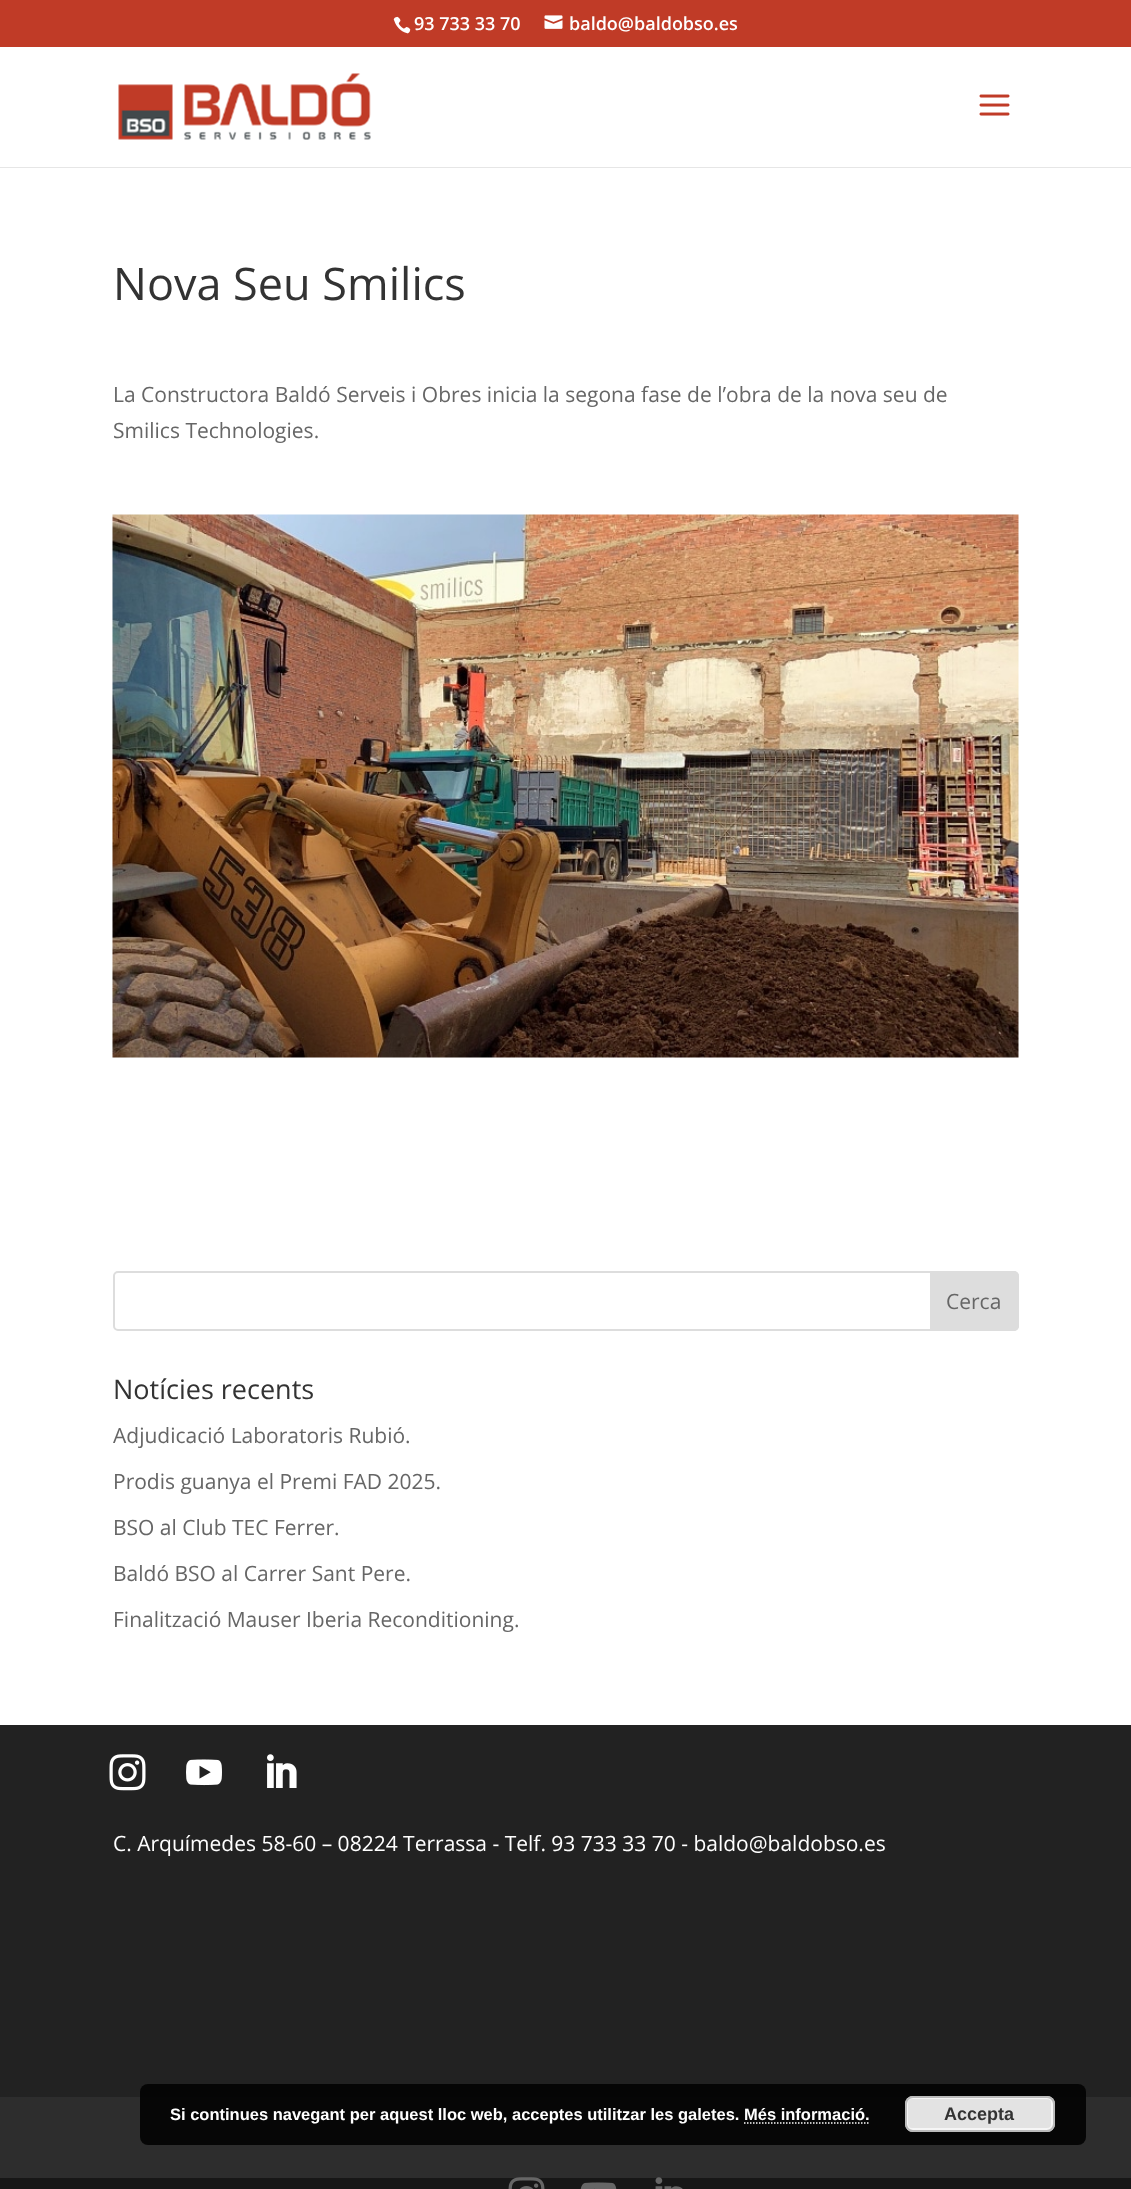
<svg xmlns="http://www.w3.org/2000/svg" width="1131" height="2189">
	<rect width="100%" height="100%" fill="#FFFFFF" />
	<rect x="0" y="0" width="1131" height="47" fill="#C03B27" />
	<image x="393" y="16" width="18" height="18" href="assets/img1.png" />
	<text x="414" y="30" font-family="Open Sans" font-size="18" font-weight="600" fill="#FFFFFF">93 733 33 70</text>
	<image x="544" y="15" width="19" height="14" href="assets/img2.png" />
	<text x="569" y="30" font-family="Open Sans" font-size="18" font-weight="600" fill="#FFFFFF">baldo@baldobso.es</text>
	<rect x="0" y="167" width="1131" height="1" fill="#E6E6E6" />
	<image x="118" y="73" width="253" height="67" href="assets/img3.png" />
	<image x="979" y="94" width="31" height="22" href="assets/img4.png" />
	<text x="113" y="300" font-family="Open Sans" font-size="45" fill="#333333">Nova Seu Smilics</text>
	<g font-family="Open Sans" font-size="21" fill="#666666">
		<text x="113" y="402">La Constructora Baldó Serveis i Obres inicia la segona fase de l’obra de la nova seu de</text>
		<text x="113" y="438">Smilics Technologies.</text>
	</g>
	<image x="112" y="514" width="907" height="544" href="assets/img5.png" />
	<rect x="114" y="1272" width="904" height="58" rx="4" fill="none" stroke="#DDDDDD" stroke-width="2" />
	<path d="M931 1272H1014C1016 1272 1018 1274 1018 1276V1326C1018 1328 1016 1330 1014 1330H931Z" fill="#DDDDDD" stroke="#DDDDDD" stroke-width="2" />
	<text x="946" y="1309" font-family="Open Sans" font-size="21" fill="#666666">Cerca</text>
	<text x="113" y="1399" font-family="Open Sans" font-size="27" fill="#333333">Notícies recents</text>
	<g font-family="Open Sans" font-size="21" fill="#666666">
		<text x="113" y="1443">Adjudicació Laboratoris Rubió.</text>
		<text x="113" y="1489">Prodis guanya el Premi FAD 2025.</text>
		<text x="113" y="1535">BSO al Club TEC Ferrer.</text>
		<text x="113" y="1581">Baldó BSO al Carrer Sant Pere.</text>
		<text x="113" y="1627">Finalització Mauser Iberia Reconditioning.</text>
	</g>
	<rect x="0" y="1725" width="1131" height="372" fill="#222222" />
	<image x="109" y="1754" width="37" height="37" href="assets/img6.png" />
	<image x="186" y="1759" width="36" height="27" href="assets/img7.png" />
	<image x="267" y="1754" width="30" height="34" href="assets/img8.png" />
	<text x="113" y="1851" font-family="Open Sans" font-size="21" fill="#FFFFFF">C. Arquímedes 58-60 – 08224 Terrassa - Telf. 93 733 33 70 - baldo@baldobso.es</text>
	<rect x="0" y="2097" width="1131" height="81" fill="#2D2D2D" />
	<rect x="0" y="2178" width="1131" height="11" fill="#171717" />
	<image x="508" y="2177" width="37" height="12" href="assets/img9.png" />
	<image x="580" y="2182" width="37" height="7" href="assets/img10.png" />
	<image x="655" y="2177" width="28" height="12" href="assets/img11.png" />
	<rect x="140" y="2084" width="946" height="61" rx="8" fill="#000000" fill-opacity="0.85" />
	<text x="170" y="2120" font-family="Liberation Sans" font-size="16.5" font-weight="700" fill="#FFFFFF">Si continues navegant per aquest lloc web, acceptes utilitzar les galetes. Més informació.</text>
	<rect x="905" y="2096" width="150" height="36" rx="8" fill="#E3E3E3" />
	<rect x="907" y="2098" width="145" height="31" rx="5" fill="none" stroke="#F6F6F6" stroke-width="2" />
	<rect x="906" y="2097" width="148" height="34" rx="7" fill="none" stroke="#BBBBBB" stroke-width="2" />
	<text x="944" y="2120" font-family="Liberation Sans" font-size="18" font-weight="700" fill="#333333">Accepta</text>
	<path d="M744 2123H870" fill="none" stroke="#FFFFFF" stroke-width="1.5" stroke-dasharray="1.5 1.5" />
</svg>
